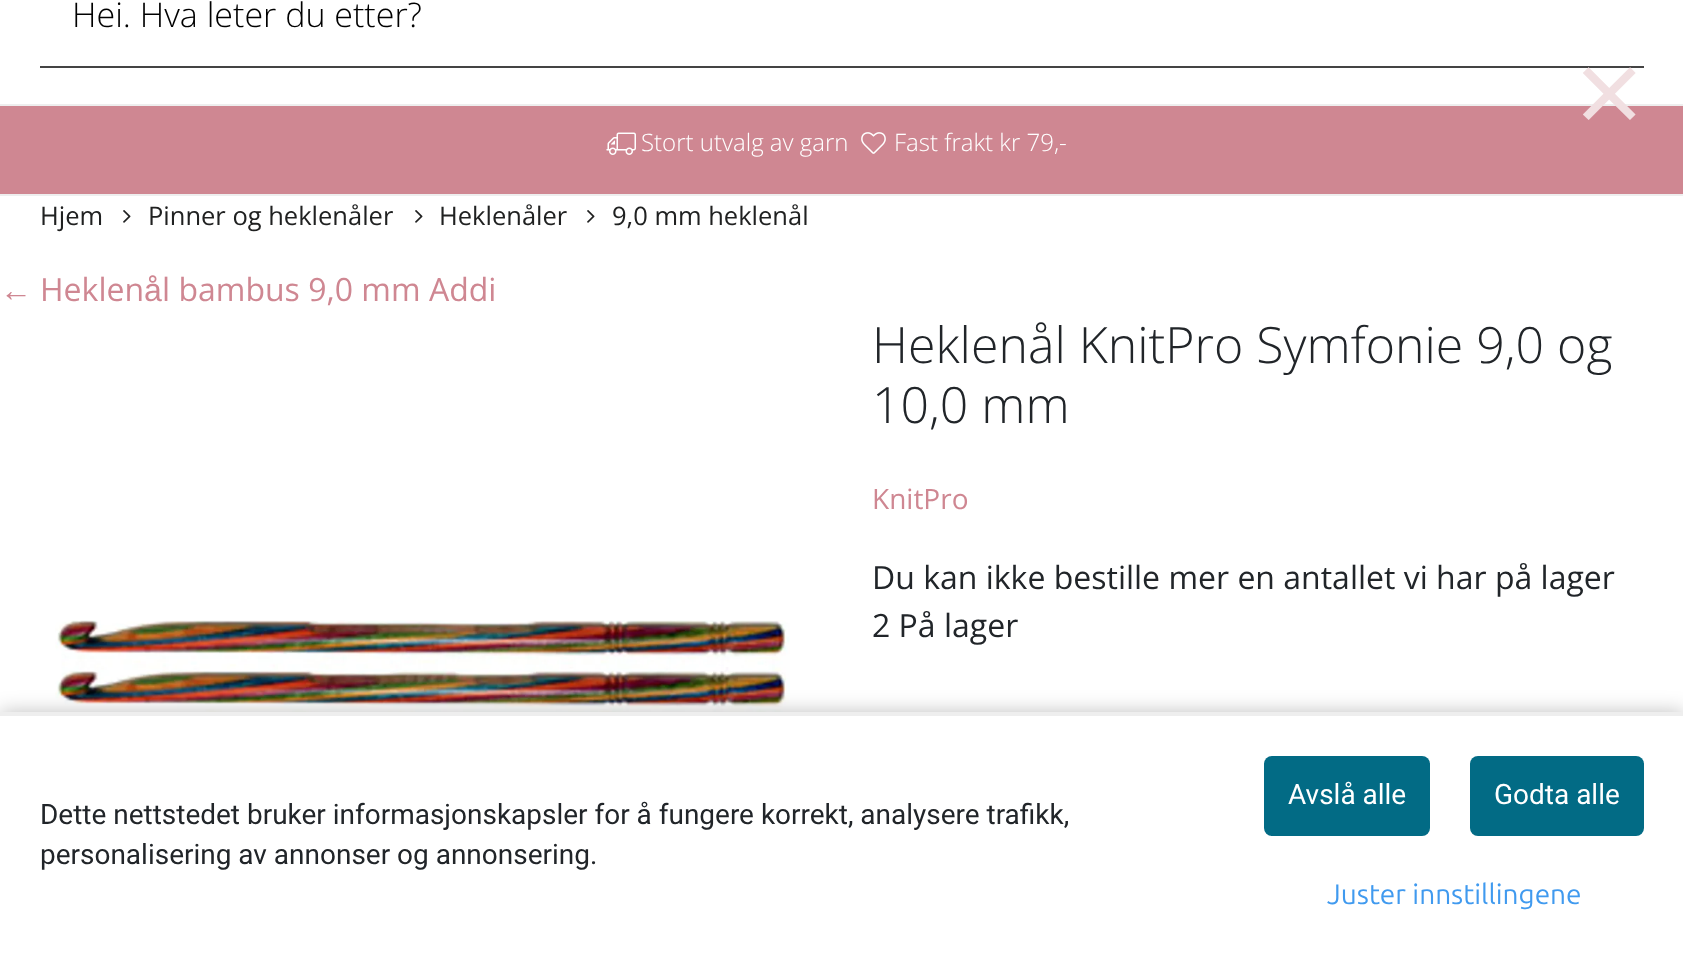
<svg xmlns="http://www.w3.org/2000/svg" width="1683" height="955">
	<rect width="100%" height="100%" fill="#FFFFFF" />
	<rect x="40" y="66" width="1604" height="2" fill="#444444" />
	<text x="72" y="27" font-family="Open Sans" font-size="34" font-weight="300" fill="#000000">Hei. Hva leter du etter?</text>
	<rect x="0" y="106" width="1683" height="88" fill="#CF8792" />
	<rect x="0" y="104" width="1683" height="2" fill="#EEEEEE" />
	<text x="1575" y="136" font-family="Open Sans" font-size="120" fill="#F1DFE1">×</text>
	<rect x="0" y="194" width="1683" height="2" fill="#EEEEEE" />
	<image x="606" y="132" width="30" height="23" href="assets/img1.png" />
	<text x="641" y="151" font-family="Open Sans" font-size="24" font-weight="300" fill="#FFFFFF">Stort utvalg av garn</text>
	<image x="861" y="132" width="25" height="22" href="assets/img2.png" />
	<text x="894" y="151" font-family="Open Sans" font-size="24" font-weight="300" fill="#FFFFFF">Fast frakt kr 79,-</text>
	<text x="40" y="225" font-family="Open Sans" font-size="25.5" fill="#202121">Hjem</text>
	<image x="123" y="210" width="8" height="13" href="assets/img3.png" />
	<text x="148" y="225" font-family="Open Sans" font-size="25.5" fill="#202121">Pinner og heklenåler</text>
	<image x="415" y="210" width="8" height="13" href="assets/img3.png" />
	<text x="439" y="225" font-family="Open Sans" font-size="25.5" fill="#202121">Heklenåler</text>
	<image x="587" y="210" width="8" height="13" href="assets/img3.png" />
	<text x="612" y="225" font-family="Open Sans" font-size="25.5" fill="#202121">9,0 mm heklenål</text>
	<text x="0" y="301" font-family="Liberation Sans" font-size="32" fill="#CF8792">←</text>
	<text x="40" y="301" font-family="Open Sans" font-size="32" fill="#CF8792">Heklen</text>
	<text x="144" y="301" font-family="Liberation Sans" font-size="32" fill="#CF8792">å</text>
	<text x="162" y="301" font-family="Open Sans" font-size="32" fill="#CF8792">l bambus 9,0 mm Addi</text>
	<image x="55" y="620" width="735" height="92" href="assets/img4.png" />
	<g font-family="Open Sans" font-size="50" font-weight="300" fill="#212529">
		<text x="872" y="363">Heklenål KnitPro Symfonie 9,0 og</text>
		<text x="872" y="423">10,0 mm</text>
	</g>
	<text x="872" y="509" font-family="Open Sans" font-size="28" fill="#CF8792">KnitPro</text>
	<g font-family="Open Sans" font-size="32" fill="#212529">
		<text x="872" y="589">Du kan ikke bestille mer en antallet vi har på lager</text>
		<text x="872" y="637">2 På lager</text>
	</g>
	<rect x="0" y="712" width="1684" height="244" fill="#000000" fill-opacity="0.25" filter="blur(10px)" />
	<rect x="0" y="716" width="1683" height="239" fill="#FFFFFF" />
	<rect x="0" y="712" width="1683" height="4" fill="#EEEEEE" />
	<g font-family="Roboto" font-size="28" fill="#212529">
		<text x="40" y="824">Dette nettstedet bruker informasjonskapsler for å fungere korrekt, analysere trafikk,</text>
		<text x="40" y="864">personalisering av annonser og annonsering.</text>
	</g>
	<rect x="1264" y="756" width="166" height="80" rx="8" fill="#026B85" />
	<text x="1288" y="804" font-family="Roboto" font-size="28" fill="#FFFFFF">Avslå alle</text>
	<rect x="1470" y="756" width="174" height="80" rx="8" fill="#026B85" />
	<text x="1494" y="804" font-family="Roboto" font-size="28" fill="#FFFFFF">Godta alle</text>
	<text x="1327" y="904" font-family="Ubuntu" font-size="28" fill="#409AEF">Juster innstillingene</text>
</svg>
